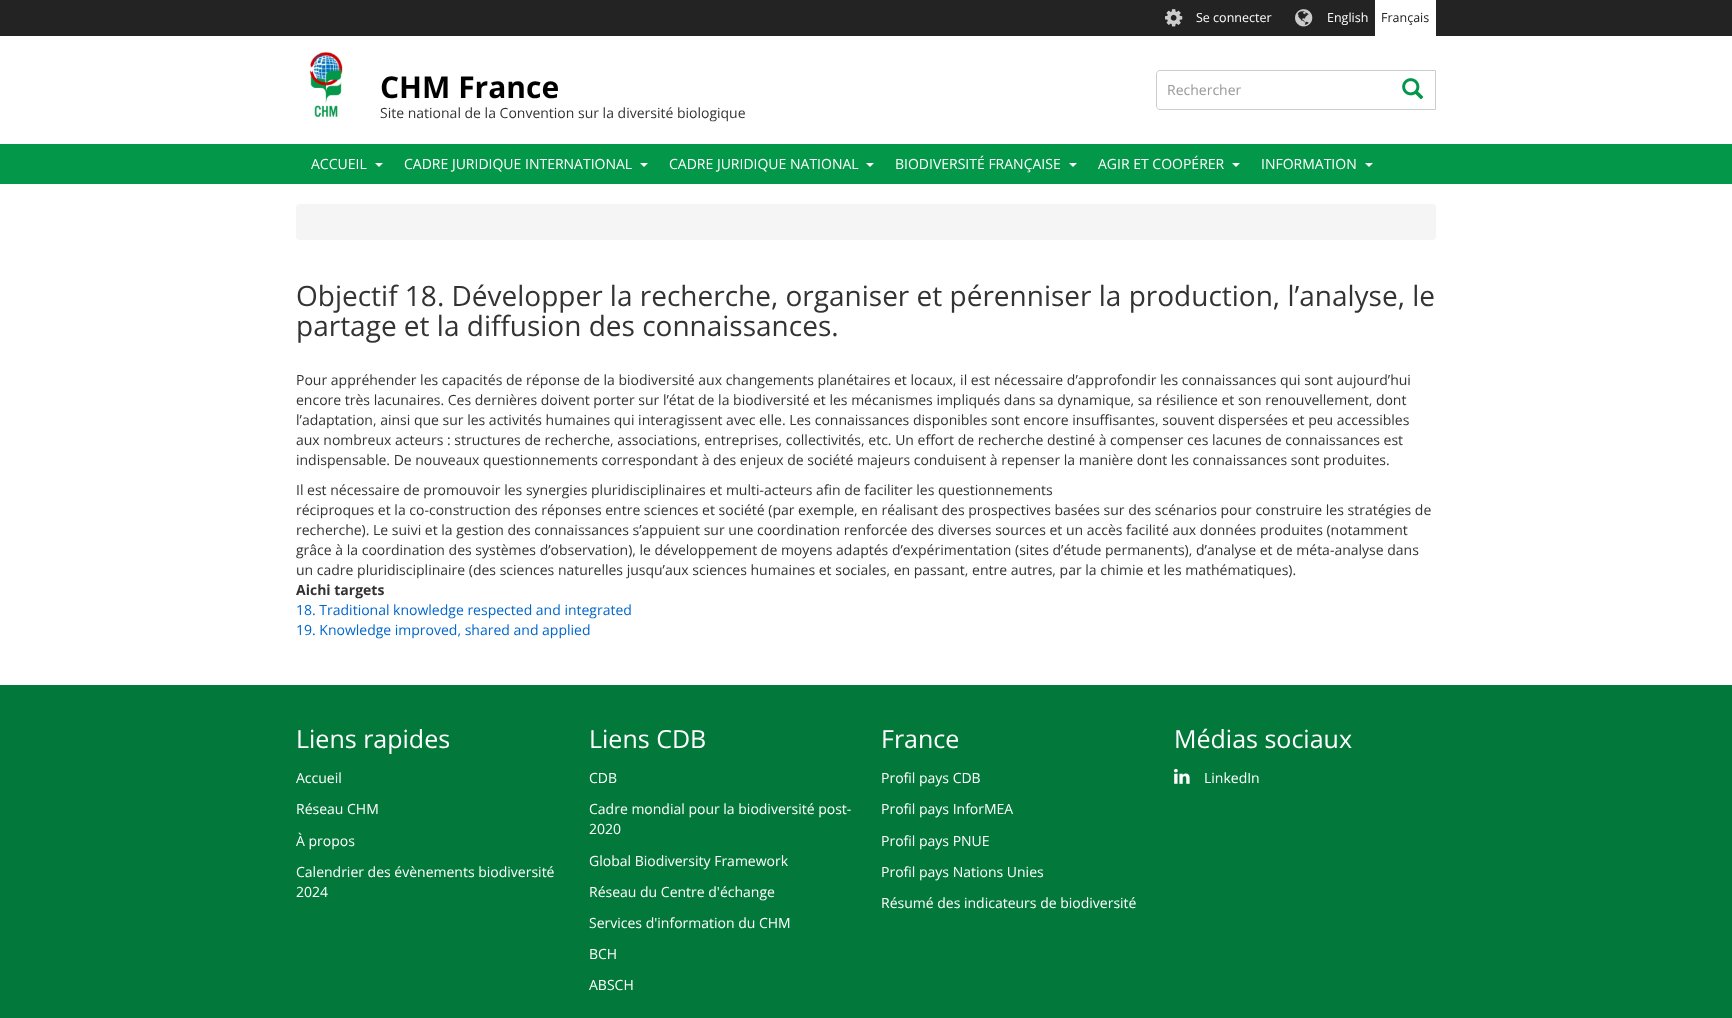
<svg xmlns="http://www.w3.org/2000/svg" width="1732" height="1018">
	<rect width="100%" height="100%" fill="#FFFFFF" />
	<rect x="0" y="0" width="1732" height="36" fill="#232323" />
	<image x="1165" y="9" width="18" height="18" href="assets/img1.png" />
	<text x="1196" y="22" font-family="Open Sans" font-size="12.5" fill="#FFFFFF">Se connecter</text>
	<image x="1295" y="9" width="18" height="18" href="assets/img2.png" />
	<text x="1327" y="22" font-family="Open Sans" font-size="12.5" fill="#FFFFFF">English</text>
	<rect x="1375" y="0" width="61" height="36" fill="#FFFFFF" />
	<text x="1381" y="22" font-family="Open Sans" font-size="12.5" fill="#232323">Français</text>
	<image x="309" y="52" width="34" height="66" href="assets/img3.png" />
	<text x="380" y="98" font-family="Open Sans" font-size="30" font-weight="700" fill="#000000">CHM France</text>
	<text x="380" y="118" font-family="Open Sans" font-size="14" fill="#333333">Site national de la Convention sur la diversité biologique</text>
	<path d="M1160 70.5H1435.5V109.5H1160C1158 109.5 1156.5 108 1156.5 106V74C1156.5 72 1158 70.5 1160 70.5Z" fill="none" stroke="#CCCCCC" />
	<text x="1167" y="95" font-family="Open Sans" font-size="14" fill="#999999">Rechercher</text>
	<image x="1402" y="78" width="22" height="22" href="assets/img4.png" />
	<rect x="0" y="144" width="1732" height="40" fill="#039749" />
	<text x="311" y="169" font-family="Open Sans" font-size="14" fill="#FFFFFF">ACCUEIL</text>
	<path d="M375 163H383L379 167Z" fill="#FFFFFF" />
	<text x="404" y="169" font-family="Open Sans" font-size="14" fill="#FFFFFF">CADRE JURIDIQUE INTERNATIONAL</text>
	<path d="M640 163H648L644 167Z" fill="#FFFFFF" />
	<text x="669" y="169" font-family="Open Sans" font-size="14" fill="#FFFFFF">CADRE JURIDIQUE NATIONAL</text>
	<path d="M866 163H874L870 167Z" fill="#FFFFFF" />
	<text x="895" y="169" font-family="Open Sans" font-size="14" fill="#FFFFFF">BIODIVERSITÉ FRANÇAISE</text>
	<path d="M1069 163H1077L1073 167Z" fill="#FFFFFF" />
	<text x="1098" y="169" font-family="Open Sans" font-size="14" fill="#FFFFFF">AGIR ET COOPÉRER</text>
	<path d="M1232 163H1240L1236 167Z" fill="#FFFFFF" />
	<text x="1261" y="169" font-family="Open Sans" font-size="14" fill="#FFFFFF">INFORMATION</text>
	<path d="M1365 163H1373L1369 167Z" fill="#FFFFFF" />
	<rect x="296" y="204" width="1140" height="36" rx="4" fill="#F5F5F5" />
	<g font-family="Open Sans" font-size="28" fill="#333333">
		<text x="296" y="306">Objectif 18. Développer la recherche, organiser et pérenniser la production, l’analyse, le</text>
		<text x="296" y="336">partage et la diffusion des connaissances.</text>
	</g>
	<g font-family="Open Sans" font-size="14" fill="#333333">
		<text x="296" y="385">Pour appréhender les capacités de réponse de la biodiversité aux changements planétaires et locaux, il est nécessaire d’approfondir les connaissances qui sont aujourd’hui</text>
		<text x="296" y="405">encore très lacunaires. Ces dernières doivent porter sur l’état de la biodiversité et les mécanismes impliqués dans sa dynamique, sa résilience et son renouvellement, dont</text>
		<text x="296" y="425">l’adaptation, ainsi que sur les activités humaines qui interagissent avec elle. Les connaissances disponibles sont encore insuffisantes, souvent dispersées et peu accessibles</text>
		<text x="296" y="445">aux nombreux acteurs : structures de recherche, associations, entreprises, collectivités, etc. Un effort de recherche destiné à compenser ces lacunes de connaissances est</text>
		<text x="296" y="465">indispensable. De nouveaux questionnements correspondant à des enjeux de société majeurs conduisent à repenser la manière dont les connaissances sont produites.</text>
		<text x="296" y="495">Il est nécessaire de promouvoir les synergies pluridisciplinaires et multi-acteurs afin de faciliter les questionnements</text>
		<text x="296" y="515">réciproques et la co-construction des réponses entre sciences et société (par exemple, en réalisant des prospectives basées sur des scénarios pour construire les stratégies de</text>
		<text x="296" y="535">recherche). Le suivi et la gestion des connaissances s’appuient sur une coordination renforcée des diverses sources et un accès facilité aux données produites (notamment</text>
		<text x="296" y="555">grâce à la coordination des systèmes d’observation), le développement de moyens adaptés d’expérimentation (sites d’étude permanents), d’analyse et de méta-analyse dans</text>
		<text x="296" y="575">un cadre pluridisciplinaire (des sciences naturelles jusqu’aux sciences humaines et sociales, en passant, entre autres, par la chimie et les mathématiques).</text>
	</g>
	<text x="296" y="595" font-family="Open Sans" font-size="14" font-weight="700" fill="#333333">Aichi targets</text>
	<g font-family="Open Sans" font-size="14" fill="#0066CC">
		<text x="296" y="615">18. Traditional knowledge respected and integrated</text>
		<text x="296" y="635">19. Knowledge improved, shared and applied</text>
	</g>
	<rect x="0" y="685" width="1732" height="333" fill="#02783A" />
	<text x="296" y="748" font-family="Open Sans" font-size="25" fill="#FFFFFF">Liens rapides</text>
	<g font-family="Open Sans" font-size="14" fill="#FFFFFF">
		<text x="296" y="783">Accueil</text>
		<text x="296" y="814">Réseau CHM</text>
		<text x="296" y="846">À propos</text>
		<text x="296" y="877">Calendrier des évènements biodiversité</text>
		<text x="296" y="897">2024</text>
	</g>
	<text x="589" y="748" font-family="Open Sans" font-size="25" fill="#FFFFFF">Liens CDB</text>
	<g font-family="Open Sans" font-size="14" fill="#FFFFFF">
		<text x="589" y="783">CDB</text>
		<text x="589" y="814">Cadre mondial pour la biodiversité post-</text>
		<text x="589" y="834">2020</text>
		<text x="589" y="866">Global Biodiversity Framework</text>
		<text x="589" y="897">Réseau du Centre d'échange</text>
		<text x="589" y="928">Services d'information du CHM</text>
		<text x="589" y="959">BCH</text>
		<text x="589" y="990">ABSCH</text>
	</g>
	<text x="881" y="748" font-family="Open Sans" font-size="25" fill="#FFFFFF">France</text>
	<g font-family="Open Sans" font-size="14" fill="#FFFFFF">
		<text x="881" y="783">Profil pays CDB</text>
		<text x="881" y="814">Profil pays InforMEA</text>
		<text x="881" y="846">Profil pays PNUE</text>
		<text x="881" y="877">Profil pays Nations Unies</text>
		<text x="881" y="908">Résumé des indicateurs de biodiversité</text>
	</g>
	<text x="1174" y="748" font-family="Open Sans" font-size="25" fill="#FFFFFF">Médias sociaux</text>
	<image x="1174" y="768" width="16" height="16" href="assets/img5.png" />
	<text x="1204" y="783" font-family="Open Sans" font-size="14" fill="#FFFFFF">LinkedIn</text>
</svg>
